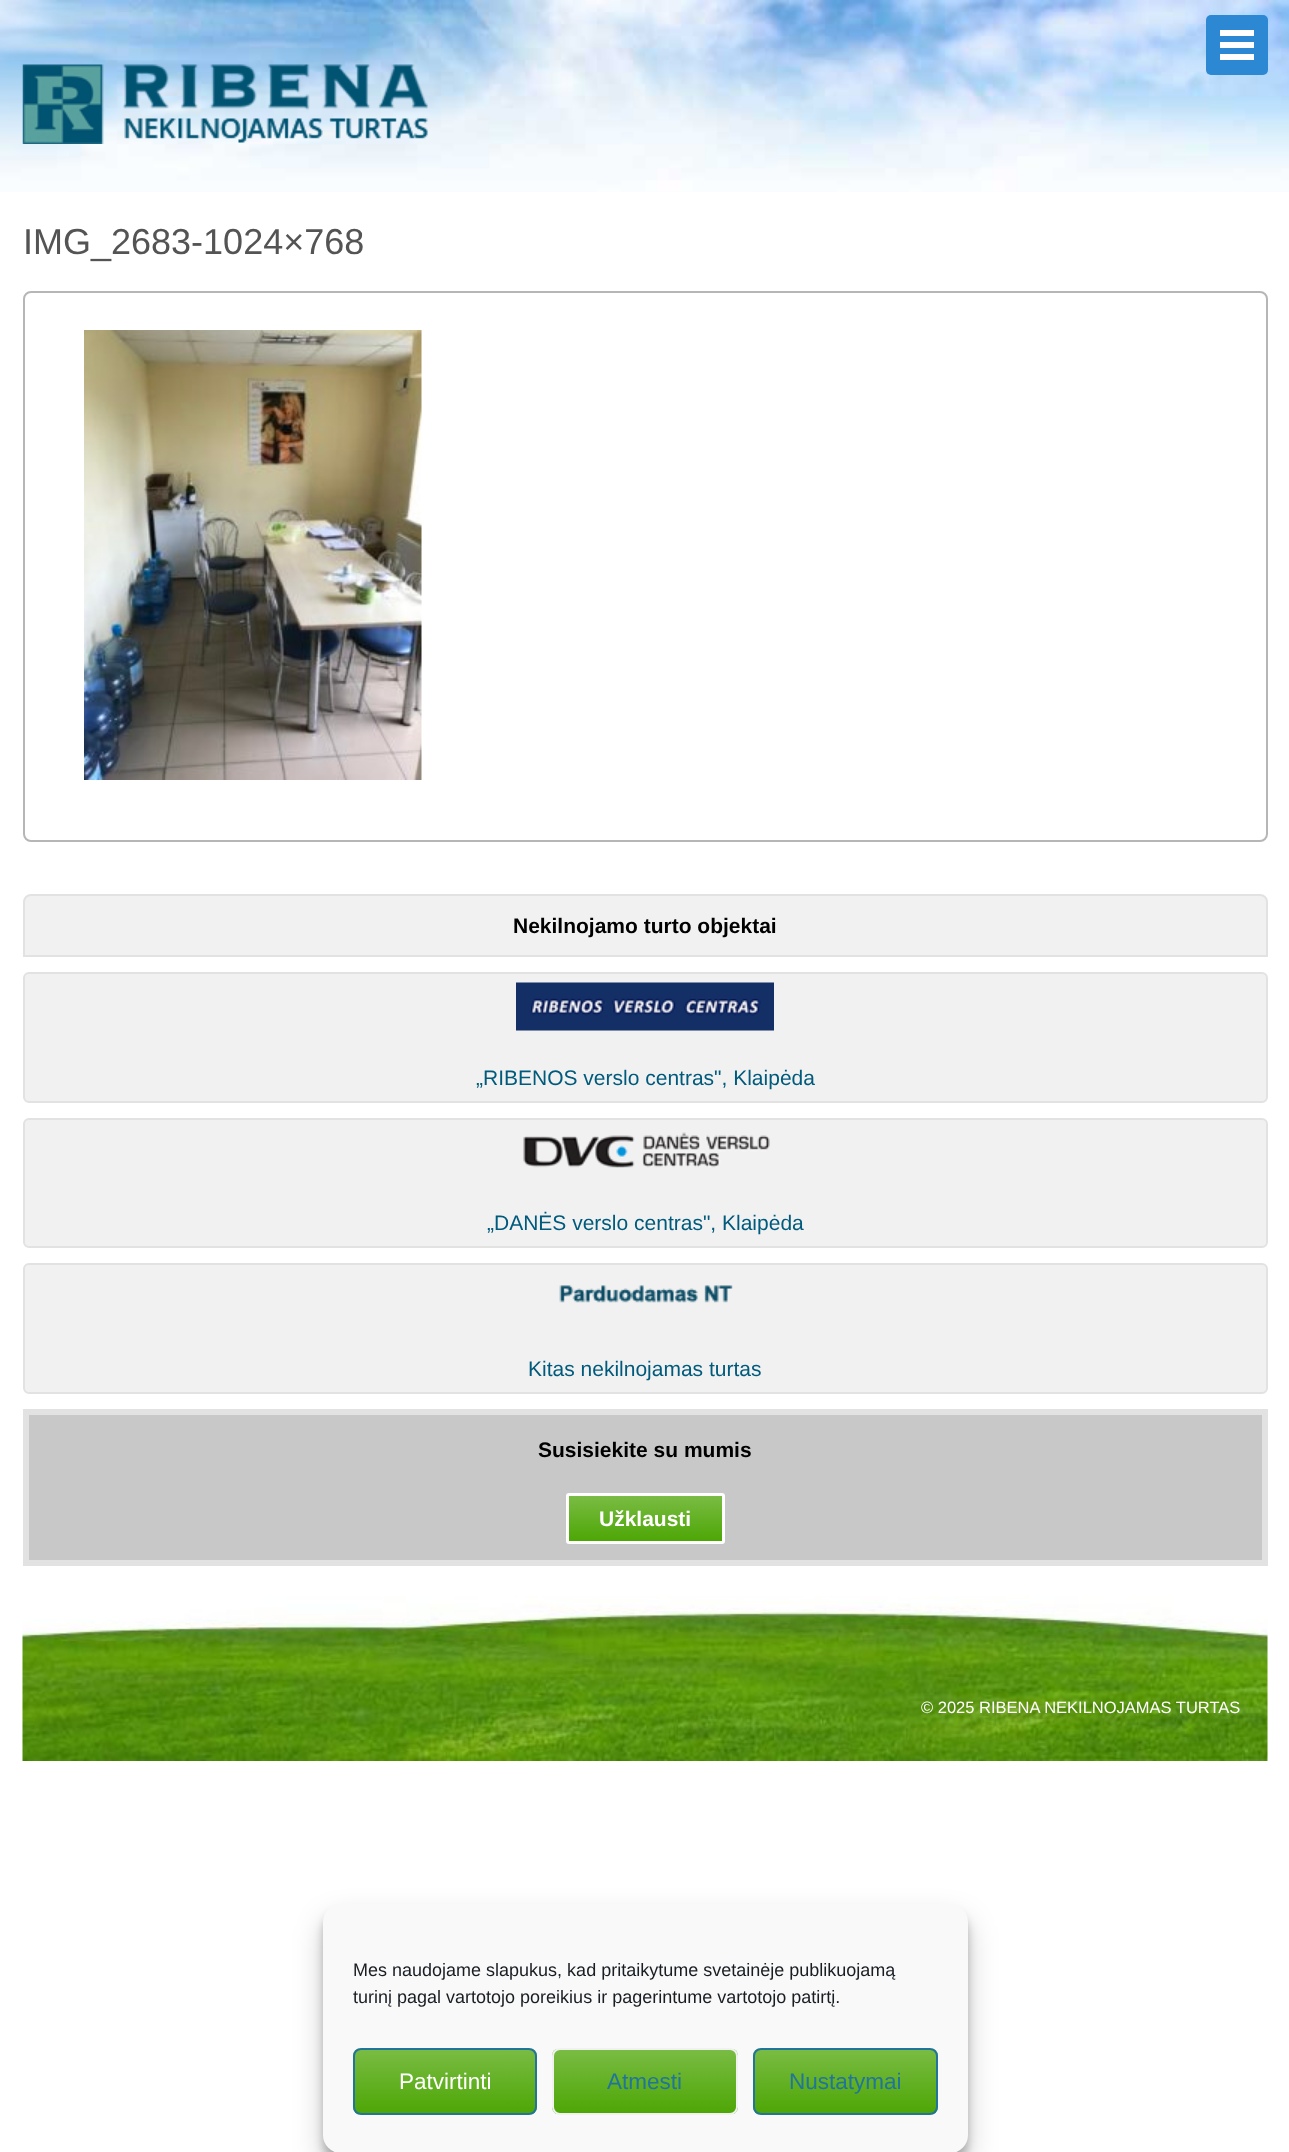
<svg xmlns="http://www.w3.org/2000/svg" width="1289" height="2152">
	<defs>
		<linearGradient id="g1" gradientUnits="userSpaceOnUse" x1="645" y1="1496" x2="645" y2="1541"><stop offset="0" stop-color="#7ABC44" /><stop offset="1" stop-color="#4DA605" /></linearGradient>
		<clipPath id="clip1"><rect x="353" y="2048" width="184" height="67" rx="8" /></clipPath>
		<linearGradient id="g2" gradientUnits="userSpaceOnUse" x1="445" y1="2049" x2="445" y2="2114"><stop offset="0" stop-color="#7ABC44" /><stop offset="1" stop-color="#4DA605" /></linearGradient>
		<clipPath id="clip2"><rect x="552" y="2048" width="186" height="67" rx="8" /></clipPath>
		<linearGradient id="g3" gradientUnits="userSpaceOnUse" x1="645" y1="2049" x2="645" y2="2114"><stop offset="0" stop-color="#7ABC44" /><stop offset="1" stop-color="#4DA605" /></linearGradient>
		<clipPath id="clip3"><rect x="753" y="2048" width="185" height="67" rx="8" /></clipPath>
		<linearGradient id="g4" gradientUnits="userSpaceOnUse" x1="845" y1="2049" x2="845" y2="2114"><stop offset="0" stop-color="#7ABC44" /><stop offset="1" stop-color="#4DA605" /></linearGradient>
	</defs>
	<rect width="100%" height="100%" fill="#FFFFFF" />
	<image x="0" y="0" width="1289" height="192" href="assets/img1.png" />
	<rect x="1206" y="15" width="62" height="60" rx="5" fill="#2D88D4" />
	<rect x="1220" y="30" width="34" height="6" fill="#FFFFFF" />
	<rect x="1220" y="42" width="34" height="6" fill="#FFFFFF" />
	<rect x="1220" y="54" width="34" height="6" fill="#FFFFFF" />
	<image x="22" y="64" width="406" height="80" href="assets/img2.png" />
	<text x="23" y="254" font-family="Liberation Sans" font-size="36" fill="#545454">IMG_2683-1024×768</text>
	<rect x="24" y="292" width="1243" height="549" rx="7" fill="none" stroke="#B6B6B6" stroke-width="2" />
	<image x="84" y="330" width="338" height="450" href="assets/img3.png" />
	<path d="M31 895H1260C1264 895 1267 898 1267 902V956H24V902C24 898 27 895 31 895Z" fill="#F1F1F1" stroke="#E2E2E2" stroke-width="2" />
	<text x="513" y="933" font-family="Liberation Sans" font-size="21" font-weight="700" fill="#000000">Nekilnojamo turto objektai</text>
	<rect x="24" y="973" width="1243" height="129" rx="5" fill="#F1F1F1" stroke="#E2E2E2" stroke-width="2" />
	<image x="516" y="982" width="258" height="49" href="assets/img4.png" />
	<text x="476" y="1085" font-family="Liberation Sans" font-size="21" fill="#005A7B">„RIBENOS verslo centras", Klaipėda</text>
	<rect x="24" y="1119" width="1243" height="128" rx="5" fill="#F1F1F1" stroke="#E2E2E2" stroke-width="2" />
	<image x="523" y="1132" width="247" height="36" href="assets/img5.png" />
	<text x="487" y="1230" font-family="Liberation Sans" font-size="21" fill="#005A7B">„DANĖS verslo centras", Klaipėda</text>
	<rect x="24" y="1264" width="1243" height="129" rx="5" fill="#F1F1F1" stroke="#E2E2E2" stroke-width="2" />
	<image x="559" y="1285" width="174" height="18" href="assets/img6.png" />
	<text x="528" y="1376" font-family="Liberation Sans" font-size="21" fill="#005A7B">Kitas nekilnojamas turtas</text>
	<rect x="26" y="1412" width="1239" height="151" fill="#C9C8C8" stroke="#E2E2E2" stroke-width="6" />
	<text x="538" y="1457" font-family="Liberation Sans" font-size="21" font-weight="700" fill="#000000">Susisiekite su mumis</text>
	<rect x="569" y="1496" width="153" height="45" fill="url(#g1)" />
	<rect x="567.5" y="1494.5" width="156" height="48" rx="1.5" fill="none" stroke="#FFFFFF" stroke-width="3" />
	<text x="599" y="1526" font-family="Liberation Sans" font-size="21" font-weight="700" fill="#FFFFFF">Užklausti</text>
	<image x="22" y="1596" width="1246" height="165" href="assets/img7.png" />
	<text x="921" y="1713" font-family="Liberation Sans" font-size="16.5" fill="#FFFFFF">© 2025 RIBENA NEKILNOJAMAS TURTAS</text>
	<rect x="323" y="1913" width="645" height="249" rx="18" fill="#000000" fill-opacity="0.23" filter="blur(4.5px)" />
	<rect x="323" y="1919" width="645" height="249" rx="18" fill="#000000" fill-opacity="0.19" filter="blur(15px)" />
	<rect x="323" y="1904" width="645" height="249" rx="18" fill="#F9F9F9" />
	<g font-family="Liberation Sans" font-size="18" fill="#191E23">
		<text x="353" y="1976">Mes naudojame slapukus, kad pritaikytume svetainėje publikuojamą</text>
		<text x="353" y="2003">turinį pagal vartotojo poreikius ir pagerintume vartotojo patirtį.</text>
	</g>
	<g clip-path="url(#clip1)">
		<rect x="353" y="2049" width="184" height="65" fill="url(#g2)" />
	</g>
	<rect x="354" y="2049" width="182" height="65" rx="7" fill="none" stroke="#21759B" stroke-width="2" />
	<text x="399" y="2089" font-family="Liberation Sans" font-size="22.5" fill="#FFFFFF">Patvirtinti</text>
	<g clip-path="url(#clip2)">
		<rect x="552" y="2049" width="186" height="65" fill="url(#g3)" />
	</g>
	<rect x="553" y="2049" width="184" height="65" rx="7" fill="none" stroke="#F1F1F1" stroke-width="2" />
	<text x="607" y="2089" font-family="Liberation Sans" font-size="22.5" fill="#21759B">Atmesti</text>
	<g clip-path="url(#clip3)">
		<rect x="753" y="2049" width="185" height="65" fill="url(#g4)" />
	</g>
	<rect x="754" y="2049" width="183" height="65" rx="7" fill="none" stroke="#21759B" stroke-width="2" />
	<text x="789" y="2089" font-family="Liberation Sans" font-size="22.5" fill="#21759B">Nustatymai</text>
</svg>
